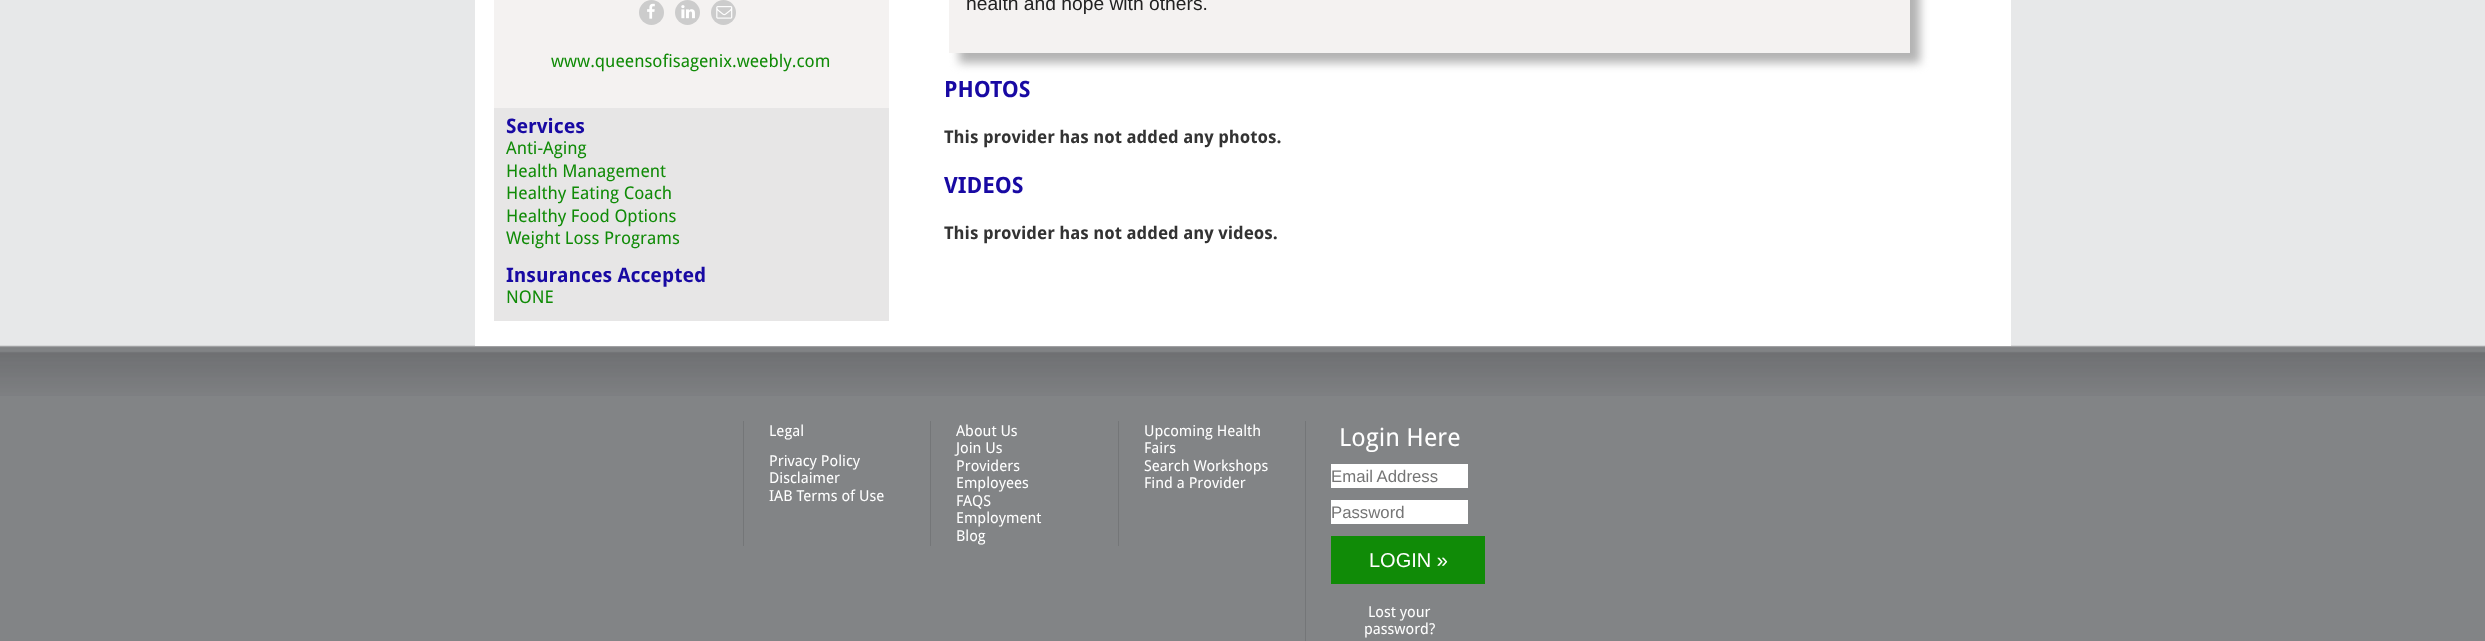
<svg xmlns="http://www.w3.org/2000/svg" width="2485" height="641">
	<rect width="100%" height="100%" fill="#E7E8E9" />
	<image x="0" y="345" width="2485" height="51" href="assets/img4.png" />
	<rect x="475" y="0" width="1536" height="346" fill="#FFFFFF" />
	<rect x="494" y="0" width="395" height="108" fill="#F4F2F1" />
	<circle cx="651.5" cy="12.5" r="12.5" fill="#CCCCCC" />
	<image x="647" y="3" width="8" height="16" href="assets/img1.png" />
	<circle cx="687.5" cy="12.5" r="12.5" fill="#CCCCCC" />
	<image x="681" y="5" width="14" height="14" href="assets/img2.png" />
	<circle cx="723.5" cy="12.5" r="12.5" fill="#CCCCCC" />
	<image x="716" y="6" width="17" height="13" href="assets/img3.png" />
	<text x="551" y="67" font-family="Droid Sans" font-size="17.5" fill="#108B07">www.queensofisagenix.weebly.com</text>
	<rect x="494" y="108" width="395" height="213" fill="#E7E6E6" />
	<text x="506" y="133" font-family="Droid Sans" font-size="20" font-weight="700" fill="#1809A3">Services</text>
	<g font-family="Droid Sans" font-size="17.5" fill="#108B07">
		<text x="506" y="154">Anti-Aging</text>
		<text x="506" y="177">Health Management</text>
		<text x="506" y="199">Healthy Eating Coach</text>
		<text x="506" y="222">Healthy Food Options</text>
		<text x="506" y="244">Weight Loss Programs</text>
	</g>
	<text x="506" y="282" font-family="Droid Sans" font-size="20" font-weight="700" fill="#1809A3">Insurances Accepted</text>
	<text x="506" y="303" font-family="Droid Sans" font-size="17.5" fill="#108B07">NONE</text>
	<rect x="959" y="-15" width="961" height="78" fill="#B3B3B3" filter="blur(5px)" />
	<rect x="949" y="0" width="961" height="53" fill="#F4F2F1" />
	<text x="966" y="10" font-family="Liberation Sans" font-size="19.25" fill="#222222">health and hope with others.</text>
	<text x="944" y="97" font-family="Droid Sans" font-size="22.5" font-weight="700" fill="#1809A3">PHOTOS</text>
	<text x="944" y="143" font-family="Droid Sans" font-size="17.5" font-weight="700" fill="#333333">This provider has not added any photos.</text>
	<text x="944" y="193" font-family="Droid Sans" font-size="22.5" font-weight="700" fill="#1809A3">VIDEOS</text>
	<text x="944" y="239" font-family="Droid Sans" font-size="17.5" font-weight="700" fill="#333333">This provider has not added any videos.</text>
	<rect x="0" y="396" width="2485" height="245" fill="#828486" />
	<rect x="743" y="421" width="1" height="125" fill="#747678" />
	<g font-family="Droid Sans" font-size="15" fill="#FFFFFF">
		<text x="769" y="436">Legal</text>
		<text x="769" y="466">Privacy Policy</text>
		<text x="769" y="483">Disclaimer</text>
		<text x="769" y="501">IAB Terms of Use</text>
	</g>
	<rect x="930" y="421" width="1" height="125" fill="#747678" />
	<g font-family="Droid Sans" font-size="15" fill="#FFFFFF">
		<text x="956" y="436">About Us</text>
		<text x="956" y="453">Join Us</text>
		<text x="956" y="471">Providers</text>
		<text x="956" y="488">Employees</text>
		<text x="956" y="506">FAQS</text>
		<text x="956" y="523">Employment</text>
		<text x="956" y="541">Blog</text>
	</g>
	<rect x="1118" y="421" width="1" height="125" fill="#747678" />
	<g font-family="Droid Sans" font-size="15" fill="#FFFFFF">
		<text x="1144" y="436">Upcoming Health</text>
		<text x="1144" y="453">Fairs</text>
		<text x="1144" y="471">Search Workshops</text>
		<text x="1144" y="488">Find a Provider</text>
	</g>
	<rect x="1305" y="421" width="1" height="220" fill="#747678" />
	<text x="1339" y="446" font-family="Droid Sans" font-size="25" fill="#FFFFFF">Login Here</text>
	<rect x="1331" y="464" width="137" height="24" fill="#FFFFFF" />
	<text x="1331" y="482" font-family="Liberation Sans" font-size="16.75" fill="#757575">Email Address</text>
	<rect x="1331" y="500" width="137" height="24" fill="#FFFFFF" />
	<text x="1331" y="518" font-family="Liberation Sans" font-size="16.75" fill="#757575">Password</text>
	<rect x="1331" y="536" width="154" height="48" fill="#108B07" />
	<text x="1369" y="567" font-family="Liberation Sans" font-size="20" fill="#FFFFFF">LOGIN »</text>
	<g font-family="Droid Sans" font-size="15" fill="#FFFFFF">
		<text x="1368" y="617">Lost your</text>
		<text x="1364" y="634">password?</text>
	</g>
</svg>
